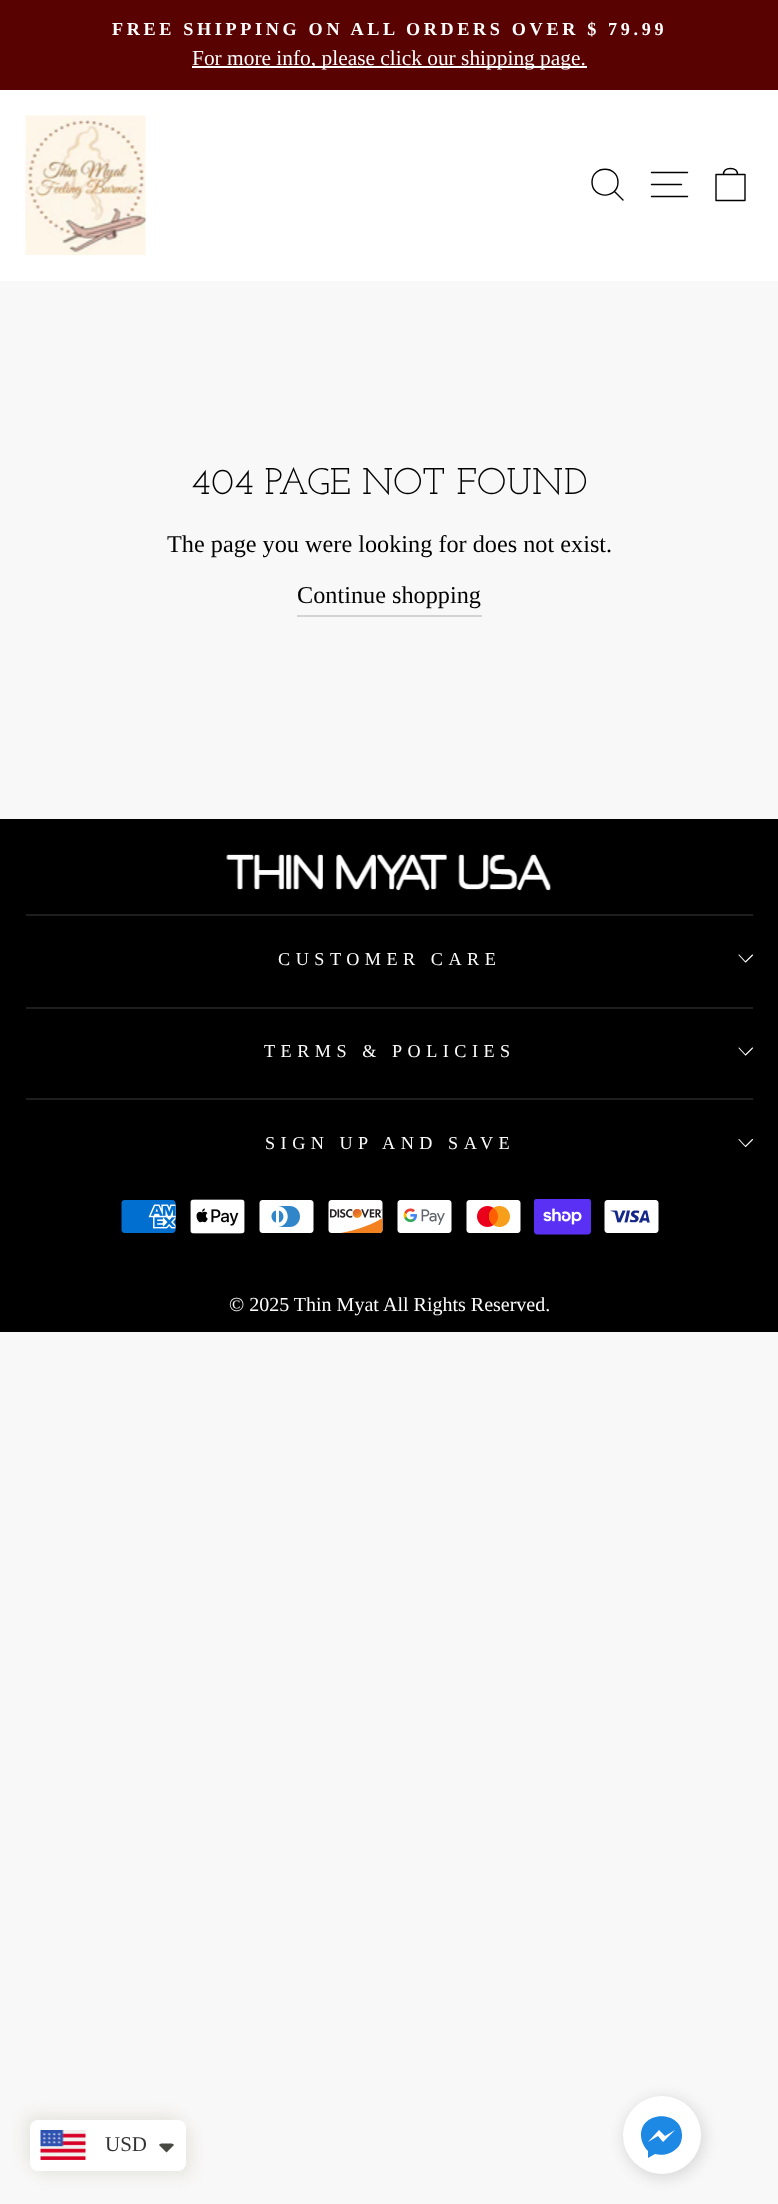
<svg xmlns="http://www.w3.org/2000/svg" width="778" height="2204">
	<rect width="100%" height="100%" fill="#F9F8F8" />
	<rect x="0" y="0" width="778" height="90" fill="#580202" />
	<text x="112" y="35" font-family="Liberation Serif" font-size="18.2" font-weight="700" letter-spacing="3.65" fill="#FCFCFC">FREE SHIPPING ON ALL ORDERS OVER $ 79.99</text>
	<rect x="192" y="66" width="395" height="2" fill="#FFFFFF" />
	<text x="192" y="65" font-family="Liberation Serif" font-size="21.4" fill="#FCFCFC">For more info, please click our shipping page.</text>
	<rect x="0" y="90" width="778" height="191" fill="#FFFFFF" />
	<image x="25" y="115" width="121" height="140" href="assets/img1.png" />
	<path d="M618 182C618 199.5 592 199.5 592 182C592 165 618 165 618 182ZM623 200L614.5 191.5" fill="none" stroke="#000000" stroke-width="1.4" stroke-linecap="round" stroke-linejoin="round" />
	<path d="M651.5 172.5H687.5M651.5 184.5H681.5M651.5 196.5H687.5" fill="none" stroke="#000000" stroke-width="1.4" stroke-linecap="round" stroke-linejoin="round" />
	<path d="M716 174.5H745V200.5H716ZM723.5 174.5C723.5 169.5 726.5 168.5 730.5 168.5C734.5 168.5 737.5 169.5 737.5 174.5" fill="none" stroke="#000000" stroke-width="1.4" stroke-linecap="round" stroke-linejoin="round" />
	<text x="191" y="494" font-family="Josefin Slab" font-size="37" fill="#000000">404 PAGE NOT FOUND</text>
	<text x="167" y="552" font-family="Liberation Serif" font-size="24.25" fill="#000000">The page you were looking for does not exist.</text>
	<rect x="297" y="615" width="185" height="2" fill="#D4D3D3" />
	<text x="297" y="603" font-family="Liberation Serif" font-size="24.25" fill="#000000">Continue shopping</text>
	<rect x="0" y="819" width="778" height="513" fill="#000000" />
	<image x="226" y="854" width="325" height="37" href="assets/img2.png" />
	<rect x="26" y="914" width="727" height="2" fill="#1E1E1E" />
	<text x="278" y="965" font-family="Liberation Serif" font-size="18.2" letter-spacing="5.5" fill="#FCFCFC">CUSTOMER CARE</text>
	<path d="M739 955L745.5 962L752.5 955" fill="none" stroke="#FCFCFC" stroke-width="1.1" stroke-linecap="round" stroke-linejoin="round" />
	<rect x="26" y="1007" width="727" height="2" fill="#1E1E1E" />
	<text x="264" y="1057" font-family="Liberation Serif" font-size="18.2" letter-spacing="5.5" fill="#FCFCFC">TERMS &amp; POLICIES</text>
	<path d="M739 1048L745.5 1055L752.5 1048" fill="none" stroke="#FCFCFC" stroke-width="1.1" stroke-linecap="round" stroke-linejoin="round" />
	<rect x="26" y="1098" width="727" height="2" fill="#1E1E1E" />
	<text x="265" y="1149" font-family="Liberation Serif" font-size="18.2" letter-spacing="5.5" fill="#FCFCFC">SIGN UP AND SAVE</text>
	<path d="M739 1139.5L745.5 1146.5L752.5 1139.5" fill="none" stroke="#FCFCFC" stroke-width="1.1" stroke-linecap="round" stroke-linejoin="round" />
	<image x="121" y="1200" width="55" height="33" href="assets/img3.png" />
	<image x="190" y="1199" width="55" height="35" href="assets/img4.png" />
	<image x="259" y="1200" width="55" height="33" href="assets/img5.png" />
	<image x="328" y="1200" width="55" height="33" href="assets/img6.png" />
	<image x="397" y="1200" width="55" height="33" href="assets/img7.png" />
	<image x="466" y="1200" width="55" height="33" href="assets/img8.png" />
	<image x="534" y="1199" width="57" height="36" href="assets/img9.png" />
	<image x="604" y="1200" width="55" height="33" href="assets/img10.png" />
	<g font-family="Liberation Serif" font-size="20" fill="#FCFCFC">
		<text x="229" y="1311">© 2025 Thin Myat</text>
		<text x="383" y="1311">All Rights Reserved.</text>
	</g>
	<rect x="24" y="2114" width="156" height="51" rx="8" fill="#E8E8E2" filter="blur(7px)" />
	<rect x="36" y="2126" width="156" height="51" rx="8" fill="#E8E8E2" filter="blur(7px)" />
	<rect x="30" y="2120" width="156" height="51" rx="8" fill="#FFFFFF" />
	<image x="40" y="2130" width="46" height="30" href="assets/img11.png" />
	<text x="105" y="2151" font-family="Liberation Serif" font-size="21" fill="#333333">USD</text>
	<path d="M162 2143.5C161 2143.5 159.5 2144 159 2145L166.5 2152.5L174 2145C173.5 2144 172 2143.5 171 2143.5Z" fill="#474942" />
	<rect x="623" y="2096" width="84" height="84" rx="42" fill="#000000" fill-opacity="0.07" filter="blur(7px)" />
	<rect x="623" y="2099" width="78" height="78" rx="39" fill="#000000" fill-opacity="0.05" filter="blur(7.5px)" />
	<circle cx="662" cy="2135" r="39" fill="#FFFFFF" />
	<path d="M641 2135C641 2110 682 2110 682 2135C682 2141 680 2146 676 2149C671 2154 662 2156 655 2154L648 2158V2151C644 2147 641 2141 641 2135ZM658 2136L663 2142L675 2130L665 2136L659 2130L648 2142Z" fill="#1E88E5" fill-rule="evenodd" />
</svg>
